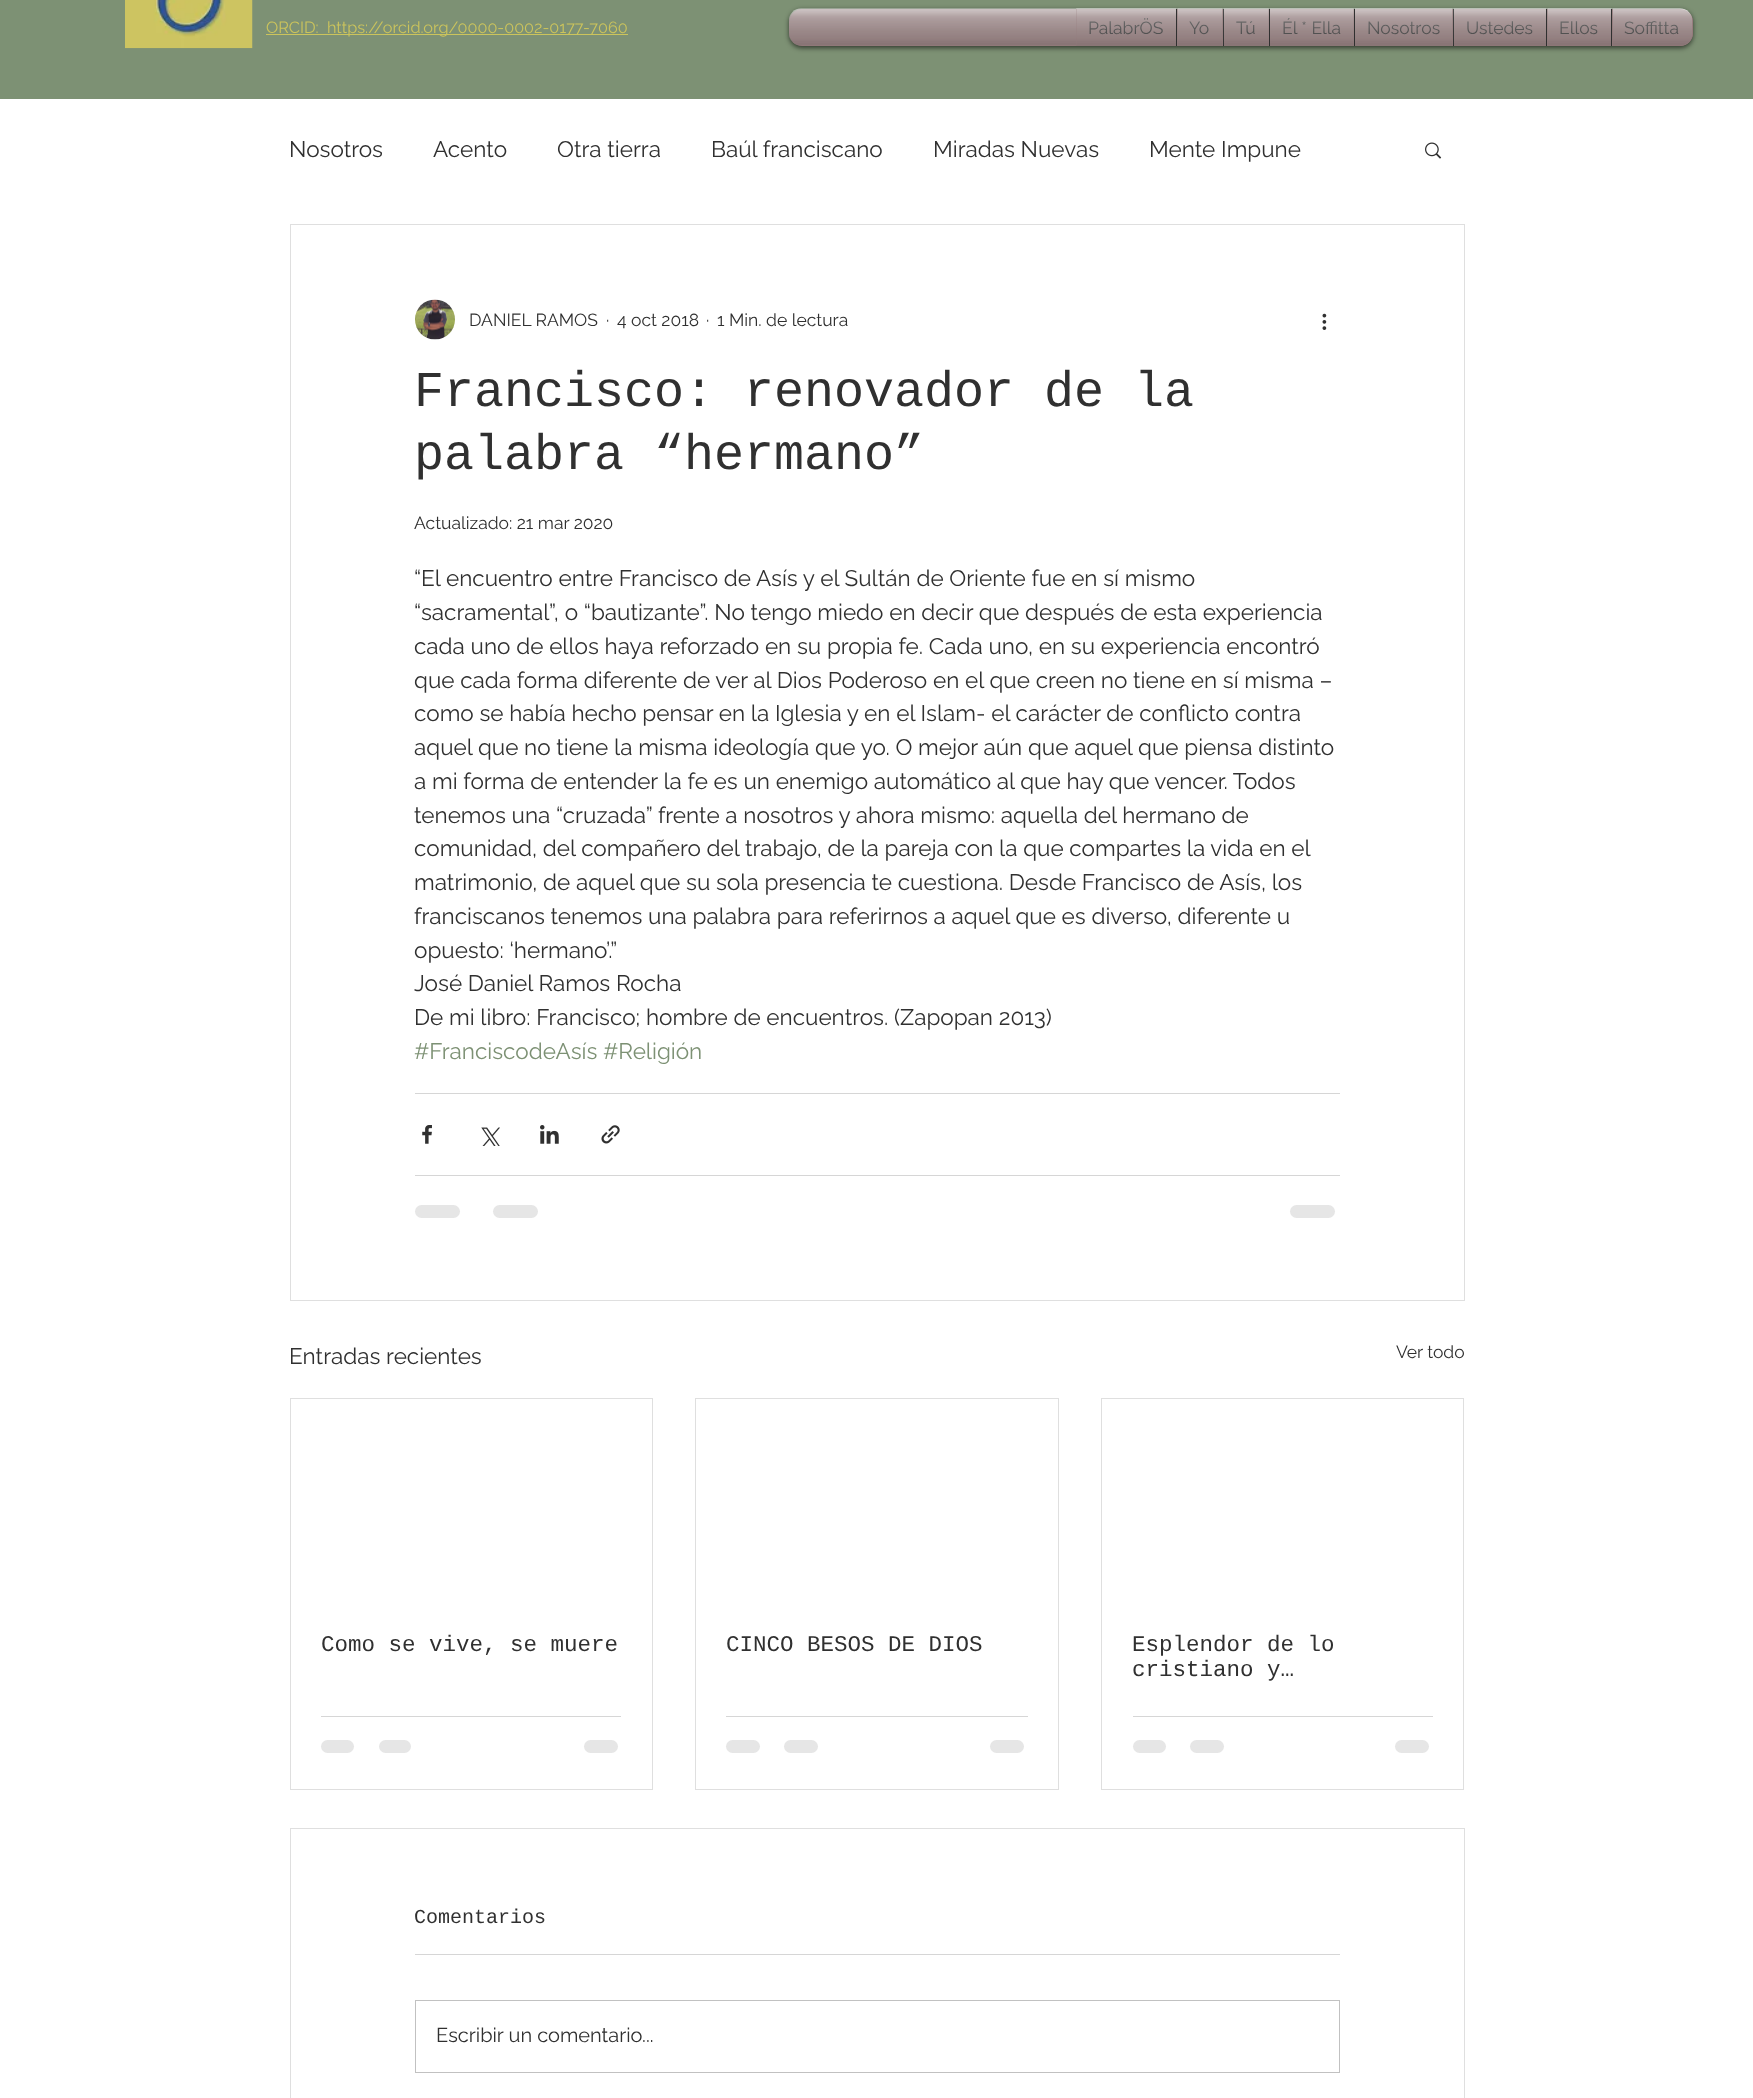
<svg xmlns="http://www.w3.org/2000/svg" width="1753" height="2098">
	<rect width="100%" height="100%" fill="#FFFFFF" />
	<rect x="0" y="0" width="1753" height="99" fill="#7D9174" />
	<image x="125" y="0" width="128" height="49" href="assets/img1.png" />
	<rect x="266" y="34" width="362" height="1" fill="#CCC45C" />
	<text x="266" y="33" font-family="Raleway" font-size="16.25" fill="#CCC45C" xml:space="preserve">ORCID:  https://orcid.org/0000-0002-0177-7060</text>
	<rect x="789" y="10" width="904" height="38" rx="13" fill="#000000" fill-opacity="0.6" filter="blur(2.5px)" />
	<rect x="789" y="9" width="904" height="37" rx="13" fill="#93797A" />
	<image x="789" y="8" width="904" height="38" href="assets/img2.png" />
	<image x="789" y="9" width="903" height="37" href="assets/img3.png" />
	<rect x="1076" y="9" width="100" height="36" fill="#93797A" />
	<text x="1088" y="34" font-family="Raleway" font-size="17.5" fill="#303030">PalabrÖS</text>
	<image x="1076" y="8" width="101" height="38" href="assets/img4.png" />
	<image x="1076" y="9" width="100" height="37" href="assets/img5.png" />
	<rect x="1177" y="9" width="46" height="36" fill="#93797A" />
	<rect x="1176" y="9" width="1" height="37" fill="#303030" />
	<text x="1189" y="34" font-family="Raleway" font-size="17.5" fill="#303030">Yo</text>
	<image x="1177" y="8" width="46" height="38" href="assets/img6.png" />
	<image x="1177" y="9" width="46" height="37" href="assets/img7.png" />
	<rect x="1224" y="9" width="45" height="36" fill="#93797A" />
	<rect x="1223" y="9" width="1" height="37" fill="#303030" />
	<text x="1236" y="34" font-family="Raleway" font-size="17.5" fill="#303030">Tú</text>
	<image x="1223" y="8" width="46" height="38" href="assets/img8.png" />
	<image x="1224" y="9" width="45" height="37" href="assets/img9.png" />
	<rect x="1270" y="9" width="84" height="36" fill="#93797A" />
	<rect x="1269" y="9" width="1" height="37" fill="#303030" />
	<text x="1282" y="34" font-family="Raleway" font-size="17.5" fill="#303030">Él * Ella</text>
	<image x="1270" y="8" width="84" height="38" href="assets/img10.png" />
	<image x="1270" y="9" width="84" height="37" href="assets/img11.png" />
	<rect x="1355" y="9" width="98" height="36" fill="#93797A" />
	<rect x="1354" y="9" width="1" height="37" fill="#303030" />
	<text x="1367" y="34" font-family="Raleway" font-size="17.5" fill="#303030">Nosotros</text>
	<image x="1355" y="8" width="98" height="38" href="assets/img12.png" />
	<image x="1355" y="9" width="98" height="37" href="assets/img13.png" />
	<rect x="1454" y="9" width="92" height="37" fill="#93797A" />
	<rect x="1453" y="9" width="1" height="37" fill="#303030" />
	<text x="1466" y="34" font-family="Raleway" font-size="17.5" fill="#303030">Ustedes</text>
	<image x="1453" y="8" width="94" height="38" href="assets/img14.png" />
	<image x="1454" y="9" width="92" height="37" href="assets/img15.png" />
	<rect x="1547" y="9" width="64" height="37" fill="#93797A" />
	<rect x="1546" y="9" width="1" height="37" fill="#303030" />
	<text x="1559" y="34" font-family="Raleway" font-size="17.5" fill="#303030">Ellos</text>
	<image x="1547" y="8" width="65" height="38" href="assets/img16.png" />
	<image x="1547" y="9" width="64" height="37" href="assets/img17.png" />
	<path d="M1611 9H1680C1687 9 1693 15 1693 22V33C1693 40 1687 46 1680 46H1611Z" fill="#93797A" />
	<rect x="1611" y="9" width="1" height="37" fill="#303030" />
	<text x="1624" y="34" font-family="Raleway" font-size="17.5" fill="#303030">Soffitta</text>
	<image x="1612" y="8" width="81" height="38" href="assets/img18.png" />
	<image x="1612" y="9" width="80" height="37" href="assets/img19.png" />
	<g font-family="Raleway" font-size="22.5" fill="#303030">
		<text x="289" y="157">Nosotros</text>
		<text x="433" y="157">Acento</text>
		<text x="557" y="157">Otra tierra</text>
		<text x="711" y="157">Baúl franciscano</text>
		<text x="933" y="157">Miradas Nuevas</text>
		<text x="1149" y="157">Mente Impune</text>
	</g>
	<image x="1425" y="142" width="17" height="17" href="assets/img20.png" />
	<rect x="290.5" y="224.5" width="1174" height="1076" fill="none" stroke="#DFDFDF" />
	<image x="415" y="299" width="40" height="41" href="assets/img21.png" />
	<g font-family="Raleway" font-size="17.5" fill="#303030">
		<text x="469" y="326">DANIEL RAMOS</text>
		<text x="606" y="326">·</text>
		<text x="617" y="326">4 oct 2018</text>
		<text x="706" y="326">·</text>
		<text x="717" y="326">1 Min. de lectura</text>
	</g>
	<image x="1322" y="313" width="5" height="17" href="assets/img22.png" />
	<g font-family="Liberation Mono" font-size="50" fill="#303030">
		<text x="414" y="406">Francisco: renovador de la</text>
		<text x="414" y="469">palabra “hermano”</text>
	</g>
	<text x="414" y="529" font-family="Raleway" font-size="17.5" fill="#303030">Actualizado: 21 mar 2020</text>
	<g font-family="Raleway" font-size="22.5" fill="#303030">
		<text x="414" y="586">“El encuentro entre Francisco de Asís y el Sultán de Oriente fue en sí mismo</text>
		<text x="414" y="620">“sacramental”, o “bautizante”. No tengo miedo en decir que después de esta experiencia</text>
		<text x="414" y="654">cada uno de ellos haya reforzado en su propia fe. Cada uno, en su experiencia encontró</text>
		<text x="414" y="688">que cada forma diferente de ver al Dios Poderoso en el que creen no tiene en sí misma –</text>
		<text x="414" y="721">como se había hecho pensar en la Iglesia y en el Islam- el carácter de conflicto contra</text>
		<text x="414" y="755">aquel que no tiene la misma ideología que yo. O mejor aún que aquel que piensa distinto</text>
		<text x="414" y="789">a mi forma de entender la fe es un enemigo automático al que hay que vencer. Todos</text>
		<text x="414" y="823">tenemos una “cruzada” frente a nosotros y ahora mismo: aquella del hermano de</text>
		<text x="414" y="856">comunidad, del compañero del trabajo, de la pareja con la que compartes la vida en el</text>
		<text x="414" y="890">matrimonio, de aquel que su sola presencia te cuestiona. Desde Francisco de Asís, los</text>
		<text x="414" y="924">franciscanos tenemos una palabra para referirnos a aquel que es diverso, diferente u</text>
		<text x="414" y="958">opuesto: ‘hermano’.”</text>
		<text x="414" y="991">José Daniel Ramos Rocha</text>
		<text x="414" y="1025">De mi libro: Francisco; hombre de encuentros. (Zapopan 2013)</text>
	</g>
	<text x="414" y="1059" font-family="Raleway" font-size="22.5" fill="#7D9174">#FranciscodeAsís #Religión</text>
	<rect x="415" y="1093" width="925" height="1" fill="#D6D6D6" />
	<image x="422" y="1125" width="10" height="19" href="assets/img23.png" />
	<image x="481" y="1127" width="19" height="19" href="assets/img24.png" />
	<image x="540" y="1125" width="19" height="19" href="assets/img25.png" />
	<image x="601" y="1125" width="19" height="19" href="assets/img26.png" />
	<rect x="415" y="1175" width="925" height="1" fill="#D6D6D6" />
	<rect x="415" y="1205" width="45" height="13" rx="6.5" fill="#E6E6E6" />
	<rect x="493" y="1205" width="45" height="13" rx="6.5" fill="#E6E6E6" />
	<rect x="1290" y="1205" width="45" height="13" rx="6.5" fill="#E6E6E6" />
	<text x="289" y="1364" font-family="Raleway" font-size="22.5" fill="#303030">Entradas recientes</text>
	<text x="1396" y="1358" font-family="Raleway" font-size="17.5" fill="#303030">Ver todo</text>
	<rect x="290.5" y="1398.5" width="362" height="391" fill="none" stroke="#DFDFDF" />
	<text x="321" y="1651" font-family="Liberation Mono" font-size="22.5" fill="#303030">Como se vive, se muere</text>
	<rect x="321" y="1716" width="300" height="1" fill="#D6D6D6" />
	<rect x="321" y="1740" width="33" height="13" rx="6.5" fill="#E6E6E6" />
	<rect x="379" y="1740" width="32" height="13" rx="6.5" fill="#E6E6E6" />
	<rect x="584" y="1740" width="34" height="13" rx="6.5" fill="#E6E6E6" />
	<rect x="695.5" y="1398.5" width="363" height="391" fill="none" stroke="#DFDFDF" />
	<text x="726" y="1651" font-family="Liberation Mono" font-size="22.5" fill="#303030">CINCO BESOS DE DIOS</text>
	<rect x="726" y="1716" width="302" height="1" fill="#D6D6D6" />
	<rect x="726" y="1740" width="34" height="13" rx="6.5" fill="#E6E6E6" />
	<rect x="784" y="1740" width="34" height="13" rx="6.5" fill="#E6E6E6" />
	<rect x="990" y="1740" width="34" height="13" rx="6.5" fill="#E6E6E6" />
	<rect x="1101.5" y="1398.5" width="362" height="391" fill="none" stroke="#DFDFDF" />
	<g font-family="Liberation Mono" font-size="22.5" fill="#303030">
		<text x="1132" y="1651">Esplendor de lo</text>
		<text x="1132" y="1676">cristiano y…</text>
	</g>
	<rect x="1133" y="1716" width="300" height="1" fill="#D6D6D6" />
	<rect x="1133" y="1740" width="33" height="13" rx="6.5" fill="#E6E6E6" />
	<rect x="1190" y="1740" width="34" height="13" rx="6.5" fill="#E6E6E6" />
	<rect x="1395" y="1740" width="34" height="13" rx="6.5" fill="#E6E6E6" />
	<rect x="290.5" y="1828.5" width="1174" height="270" fill="none" stroke="#DFDFDF" />
	<text x="414" y="1923" font-family="Liberation Mono" font-size="20" fill="#303030">Comentarios</text>
	<rect x="415" y="1954" width="925" height="1" fill="#D6D6D6" />
	<rect x="415.5" y="2000.5" width="924" height="72" fill="none" stroke="#C1C1C1" />
	<text x="436" y="2042" font-family="Raleway" font-size="20" fill="#303030">Escribir un comentario...</text>
</svg>
